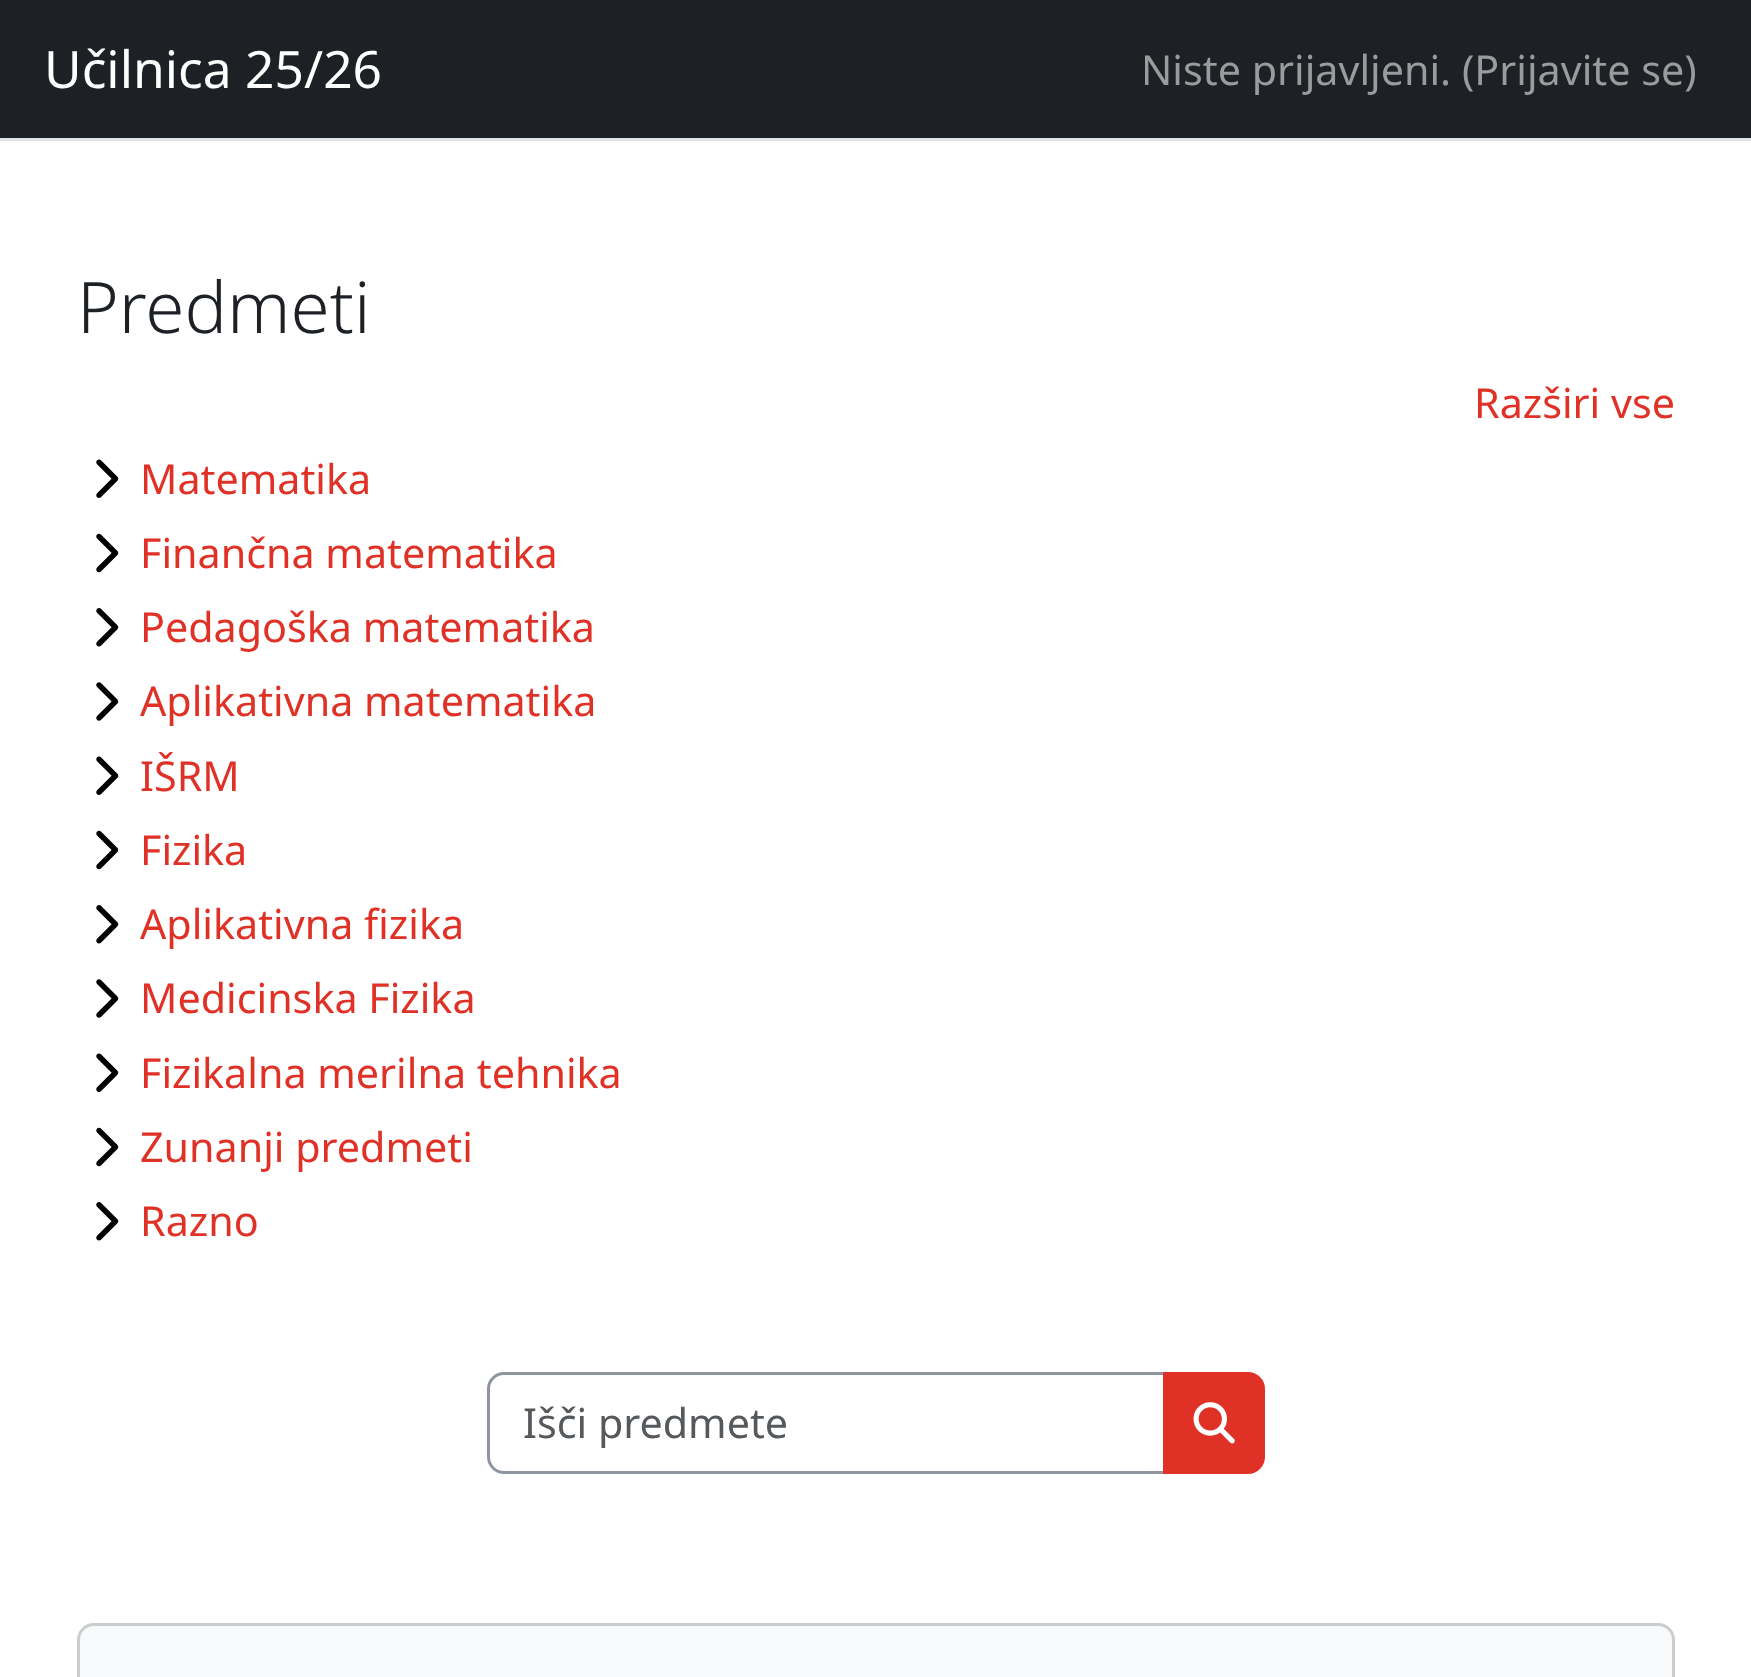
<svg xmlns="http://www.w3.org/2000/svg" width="1751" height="1677">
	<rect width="100%" height="100%" fill="#FFFFFF" />
	<rect x="0" y="0" width="1751" height="138" fill="#1D2125" />
	<rect x="0" y="138" width="1751" height="3" fill="#DEE2E6" />
	<text x="44" y="88" font-family="Noto Sans" font-size="51.5" fill="#FFFFFF">Učilnica 25/26</text>
	<text x="1141" y="85" font-family="Noto Sans" font-size="41.25" fill="#999B9D">Niste prijavljeni. (Prijavite se)</text>
	<text x="77" y="333" font-family="Noto Sans" font-size="71" font-weight="300" fill="#1D2125">Predmeti</text>
	<text x="1474" y="418" font-family="Noto Sans" font-size="41.25" fill="#E03127">Razširi vse</text>
	<image x="96" y="459" width="23" height="39" href="assets/img1.png" />
	<text x="140" y="494" font-family="Noto Sans" font-size="41.25" fill="#E03127">Matematika</text>
	<image x="96" y="533" width="23" height="40" href="assets/img2.png" />
	<text x="140" y="568" font-family="Noto Sans" font-size="41.25" fill="#E03127">Finančna matematika</text>
	<image x="96" y="608" width="23" height="39" href="assets/img3.png" />
	<text x="140" y="642" font-family="Noto Sans" font-size="41.25" fill="#E03127">Pedagoška matematika</text>
	<image x="96" y="682" width="23" height="39" href="assets/img4.png" />
	<text x="140" y="716" font-family="Noto Sans" font-size="41.25" fill="#E03127">Aplikativna matematika</text>
	<image x="96" y="756" width="23" height="39" href="assets/img5.png" />
	<text x="140" y="791" font-family="Noto Sans" font-size="41.25" fill="#E03127">IŠRM</text>
	<image x="96" y="830" width="23" height="40" href="assets/img2.png" />
	<text x="140" y="865" font-family="Noto Sans" font-size="41.25" fill="#E03127">Fizika</text>
	<image x="96" y="905" width="23" height="39" href="assets/img3.png" />
	<text x="140" y="939" font-family="Noto Sans" font-size="41.25" fill="#E03127">Aplikativna fizika</text>
	<image x="96" y="979" width="23" height="39" href="assets/img4.png" />
	<text x="140" y="1013" font-family="Noto Sans" font-size="41.25" fill="#E03127">Medicinska Fizika</text>
	<image x="96" y="1053" width="23" height="39" href="assets/img1.png" />
	<text x="140" y="1088" font-family="Noto Sans" font-size="41.25" fill="#E03127">Fizikalna merilna tehnika</text>
	<image x="96" y="1127" width="23" height="40" href="assets/img2.png" />
	<text x="140" y="1162" font-family="Noto Sans" font-size="41.25" fill="#E03127">Zunanji predmeti</text>
	<image x="96" y="1202" width="23" height="39" href="assets/img3.png" />
	<text x="140" y="1236" font-family="Noto Sans" font-size="41.25" fill="#E03127">Razno</text>
	<path d="M504 1373.5H1167.5V1472.5H504C495.5 1472.5 488.5 1465.5 488.5 1457V1389C488.5 1380.5 495.5 1373.5 504 1373.5Z" fill="none" stroke="#8F959E" stroke-width="3" />
	<text x="523" y="1438" font-family="Noto Sans" font-size="41.25" fill="#56595C">Išči predmete</text>
	<path d="M1164.5 1373.5H1248C1256.5 1373.5 1263.5 1380.5 1263.5 1389V1457C1263.5 1465.5 1256.5 1472.5 1248 1472.5H1164.5Z" fill="#E03127" stroke="#E03127" stroke-width="3" />
	<image x="1193" y="1402" width="42" height="42" href="assets/img6.png" />
	<rect x="77" y="1623" width="1598" height="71" rx="17" fill="#F8F9FA" />
	<rect x="78.5" y="1624.5" width="1595" height="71" rx="15.5" fill="none" stroke="#000000" stroke-opacity="0.18" stroke-width="3" />
</svg>
